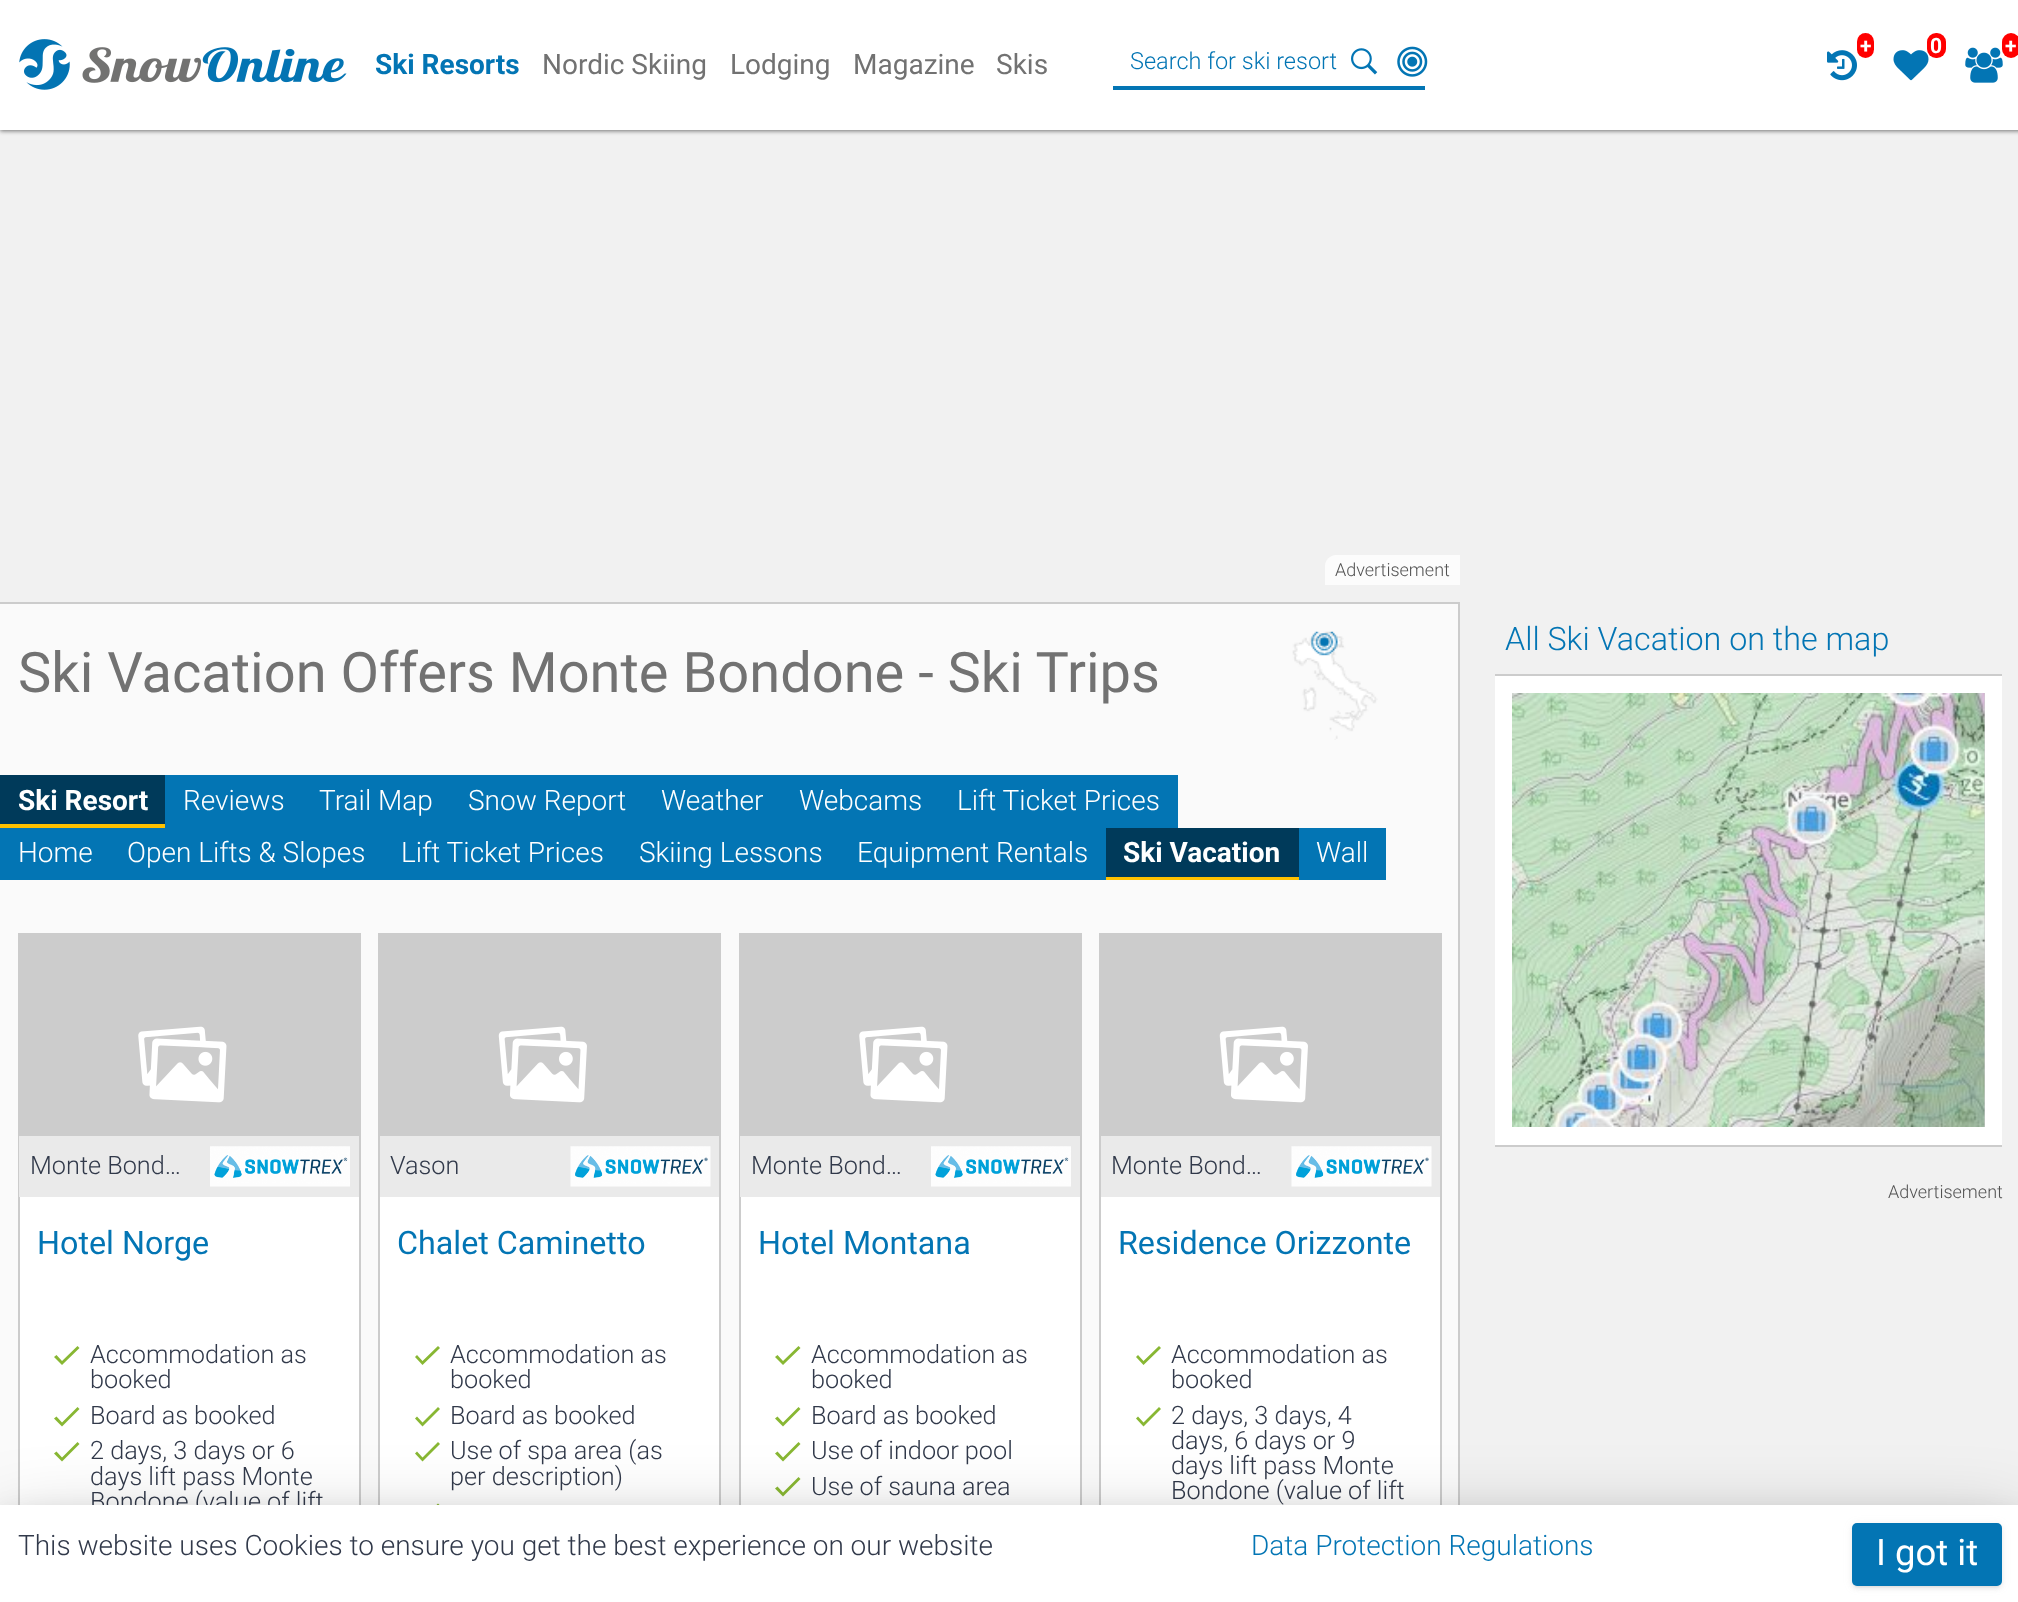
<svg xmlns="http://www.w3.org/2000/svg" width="2018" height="1602">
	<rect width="100%" height="100%" fill="#F1F1F1" />
	<rect x="0" y="-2" width="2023" height="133" fill="#727272" filter="blur(2px)" />
	<rect x="0" y="0" width="2018" height="130" fill="#FFFFFF" />
	<image x="19" y="39" width="328" height="51" href="assets/img1.png" />
	<text x="375" y="74" font-family="Roboto" font-size="28" font-weight="700" fill="#0375B4">Ski Resorts</text>
	<g font-family="Roboto" font-size="28" fill="#727272">
		<text x="542" y="74">Nordic Skiing</text>
		<text x="730" y="74">Lodging</text>
		<text x="853" y="74">Magazine</text>
		<text x="996" y="74">Skis</text>
	</g>
	<rect x="1113" y="86" width="312" height="4" fill="#0375B4" />
	<text x="1130" y="69" font-family="Roboto" font-size="23.5" font-weight="300" fill="#0375B4">Search for ski resort</text>
	<image x="1351" y="48" width="27" height="27" href="assets/img2.png" />
	<image x="1397" y="46" width="31" height="31" href="assets/img3.png" />
	<rect x="1857" y="33" width="17" height="25" rx="8.5" fill="#FF0000" />
	<text x="1860" y="53" font-family="Roboto" font-size="21" font-weight="700" fill="#FFFFFF">+</text>
	<image x="1827" y="50" width="30" height="31" href="assets/img4.png" />
	<image x="1893" y="50" width="36" height="31" href="assets/img5.png" />
	<rect x="1927" y="33" width="19" height="25" rx="9" fill="#FF0000" />
	<text x="1930" y="53" font-family="Roboto" font-size="21" font-weight="700" fill="#FFFFFF">0</text>
	<image x="1965" y="47" width="38" height="36" href="assets/img6.png" />
	<rect x="2002" y="33" width="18" height="25" rx="9" fill="#FF0000" />
	<text x="2005" y="53" font-family="Roboto" font-size="21" font-weight="700" fill="#FFFFFF">+</text>
	<rect x="0" y="602" width="1460" height="2" fill="#CCCCCC" />
	<path d="M1336 555H1460V585H1325V566C1325 560 1330 555 1336 555Z" fill="#FCFCFC" />
	<text x="1335" y="576" font-family="Roboto" font-size="18" font-weight="300" fill="#525252">Advertisement</text>
	<rect x="0" y="604" width="1458" height="901" fill="#FAFAFA" />
	<rect x="1458" y="604" width="2" height="901" fill="#CCCCCC" />
	<text x="1505" y="650" font-family="Roboto" font-size="32.25" font-weight="300" fill="#0375B4">All Ski Vacation on the map</text>
	<rect x="1495" y="676" width="507" height="469" fill="#FFFFFF" />
	<rect x="1495" y="674" width="507" height="2" fill="#CCCCCC" />
	<rect x="1495" y="1145" width="507" height="2" fill="#CCCCCC" />
	<rect x="1984" y="693" width="1" height="434" fill="#CCCCCC" />
	<image x="1512" y="693" width="473" height="434" href="assets/img7.png" />
	<text x="1888" y="1198" font-family="Roboto" font-size="18" font-weight="300" fill="#525252">Advertisement</text>
	<text x="18" y="692" font-family="Roboto" font-size="56" fill="#727272">Ski Vacation Offers Monte Bondone - Ski Trips</text>
	<image x="1292" y="631" width="86" height="109" href="assets/img8.png" />
	<rect x="165" y="775" width="1013" height="53" fill="#0375B4" />
	<rect x="0" y="775" width="165" height="49" fill="#003A5A" />
	<rect x="0" y="824" width="165" height="4" fill="#FFC100" />
	<text x="18" y="810" font-family="Roboto" font-size="28" font-weight="700" fill="#FFFFFF">Ski Resort</text>
	<g font-family="Roboto" font-size="28" font-weight="300" fill="#FFFFFF">
		<text x="183" y="810">Reviews</text>
		<text x="319" y="810">Trail Map</text>
		<text x="468" y="810">Snow Report</text>
		<text x="661" y="810">Weather</text>
		<text x="799" y="810">Webcams</text>
		<text x="957" y="810">Lift Ticket Prices</text>
	</g>
	<rect x="0" y="828" width="1386" height="52" fill="#0375B4" />
	<g font-family="Roboto" font-size="28" font-weight="300" fill="#FFFFFF">
		<text x="18" y="862">Home</text>
		<text x="127" y="862">Open Lifts &amp; Slopes</text>
		<text x="401" y="862">Lift Ticket Prices</text>
		<text x="639" y="862">Skiing Lessons</text>
		<text x="857" y="862">Equipment Rentals</text>
	</g>
	<rect x="1106" y="828" width="193" height="49" fill="#003A5A" />
	<rect x="1106" y="877" width="193" height="3" fill="#FFC100" />
	<text x="1123" y="862" font-family="Roboto" font-size="28" font-weight="700" fill="#FFFFFF">Ski Vacation</text>
	<text x="1316" y="862" font-family="Roboto" font-size="28" font-weight="300" fill="#FFFFFF">Wall</text>
	<rect x="20" y="1197" width="339" height="308" fill="#FFFFFF" />
	<rect x="19" y="934" width="341" height="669" fill="none" stroke="#CCCCCC" stroke-width="2" />
	<rect x="20" y="935" width="339" height="201" fill="#CCCCCC" />
	<image x="138" y="1026" width="89" height="77" href="assets/img9.png" />
	<rect x="19" y="1136" width="340" height="61" fill="#EAEAEA" />
	<text x="30" y="1174" font-family="Roboto" font-size="25.25" font-weight="300" fill="#31394A">Monte Bond…</text>
	<image x="210" y="1146" width="140" height="41" href="assets/img10.png" />
	<text x="37" y="1254" font-family="Roboto" font-size="32.25" fill="#0375B4">Hotel Norge</text>
	<path d="M62 1361L77.5 1346L79.5 1348L62 1365L54 1357L56.5 1355Z" fill="#88B733" />
	<g font-family="Roboto" font-size="25.25" font-weight="300" fill="#31394A">
		<text x="90" y="1363">Accommodation as</text>
		<text x="90" y="1388">booked</text>
	</g>
	<path d="M62 1422.5L77.5 1407L79.5 1409L62 1426.5L54 1418.5L56.5 1416.5Z" fill="#88B733" />
	<text x="90" y="1424" font-family="Roboto" font-size="25.25" font-weight="300" fill="#31394A">Board as booked</text>
	<path d="M62 1457.5L77.5 1442L79.5 1444L62 1461.5L54 1453.5L56.5 1451.5Z" fill="#88B733" />
	<g font-family="Roboto" font-size="25.25" font-weight="300" fill="#31394A">
		<text x="90" y="1459">2 days, 3 days or 6</text>
		<text x="90" y="1485">days lift pass Monte</text>
		<text x="90" y="1510">Bondone (value of lift</text>
	</g>
	<rect x="380" y="1197" width="339" height="308" fill="#FFFFFF" />
	<rect x="379" y="934" width="341" height="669" fill="none" stroke="#CCCCCC" stroke-width="2" />
	<rect x="380" y="935" width="339" height="201" fill="#CCCCCC" />
	<image x="498" y="1026" width="89" height="77" href="assets/img11.png" />
	<rect x="380" y="1136" width="339" height="61" fill="#EAEAEA" />
	<text x="390" y="1174" font-family="Roboto" font-size="25.25" font-weight="300" fill="#31394A">Vason</text>
	<image x="570" y="1146" width="141" height="41" href="assets/img12.png" />
	<text x="397" y="1254" font-family="Roboto" font-size="32.25" fill="#0375B4">Chalet Caminetto</text>
	<path d="M422.5 1361L438 1346L440 1348L422.5 1365L415 1357L417 1355Z" fill="#88B733" />
	<g font-family="Roboto" font-size="25.25" font-weight="300" fill="#31394A">
		<text x="450" y="1363">Accommodation as</text>
		<text x="450" y="1388">booked</text>
	</g>
	<path d="M422.5 1422.5L438 1407L440 1409L422.5 1426.5L415 1418.5L417 1416.5Z" fill="#88B733" />
	<text x="450" y="1424" font-family="Roboto" font-size="25.25" font-weight="300" fill="#31394A">Board as booked</text>
	<path d="M422.5 1457.5L438 1442L440 1444L422.5 1461.5L415 1453.5L417 1451.5Z" fill="#88B733" />
	<g font-family="Roboto" font-size="25.25" font-weight="300" fill="#31394A">
		<text x="450" y="1459">Use of spa area (as</text>
		<text x="450" y="1485">per description)</text>
	</g>
	<path d="M422.5 1518.5L438 1503.5L440 1505.5L422.5 1522.5L415 1514.5L417 1512.5Z" fill="#88B733" />
	<rect x="741" y="1197" width="339" height="308" fill="#FFFFFF" />
	<rect x="740" y="934" width="341" height="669" fill="none" stroke="#CCCCCC" stroke-width="2" />
	<rect x="741" y="935" width="339" height="201" fill="#CCCCCC" />
	<image x="859" y="1026" width="89" height="77" href="assets/img9.png" />
	<rect x="740" y="1136" width="340" height="61" fill="#EAEAEA" />
	<text x="751" y="1174" font-family="Roboto" font-size="25.25" font-weight="300" fill="#31394A">Monte Bond…</text>
	<image x="931" y="1146" width="140" height="41" href="assets/img13.png" />
	<text x="758" y="1254" font-family="Roboto" font-size="32.25" fill="#0375B4">Hotel Montana</text>
	<path d="M783 1361L798.5 1346L800.5 1348L783 1365L775 1357L777.5 1355Z" fill="#88B733" />
	<g font-family="Roboto" font-size="25.25" font-weight="300" fill="#31394A">
		<text x="811" y="1363">Accommodation as</text>
		<text x="811" y="1388">booked</text>
	</g>
	<path d="M783 1422.5L798.5 1407L800.5 1409L783 1426.5L775 1418.5L777.5 1416.5Z" fill="#88B733" />
	<text x="811" y="1424" font-family="Roboto" font-size="25.25" font-weight="300" fill="#31394A">Board as booked</text>
	<path d="M783 1457.5L798.5 1442L800.5 1444L783 1461.5L775 1453.5L777.5 1451.5Z" fill="#88B733" />
	<text x="811" y="1459" font-family="Roboto" font-size="25.25" font-weight="300" fill="#31394A">Use of indoor pool</text>
	<path d="M783 1492.5L798.5 1477L800.5 1479L783 1496.5L775 1488.5L777.5 1486.5Z" fill="#88B733" />
	<text x="811" y="1495" font-family="Roboto" font-size="25.25" font-weight="300" fill="#31394A">Use of sauna area</text>
	<rect x="1101" y="1197" width="339" height="308" fill="#FFFFFF" />
	<rect x="1100" y="934" width="341" height="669" fill="none" stroke="#CCCCCC" stroke-width="2" />
	<rect x="1101" y="935" width="339" height="201" fill="#CCCCCC" />
	<image x="1219" y="1026" width="89" height="77" href="assets/img11.png" />
	<rect x="1101" y="1136" width="339" height="61" fill="#EAEAEA" />
	<text x="1111" y="1174" font-family="Roboto" font-size="25.25" font-weight="300" fill="#31394A">Monte Bond…</text>
	<image x="1291" y="1146" width="141" height="41" href="assets/img14.png" />
	<text x="1118" y="1254" font-family="Roboto" font-size="32.25" fill="#0375B4">Residence Orizzonte</text>
	<path d="M1143.5 1361L1159 1346L1161 1348L1143.5 1365L1136 1357L1138 1355Z" fill="#88B733" />
	<g font-family="Roboto" font-size="25.25" font-weight="300" fill="#31394A">
		<text x="1171" y="1363">Accommodation as</text>
		<text x="1171" y="1388">booked</text>
	</g>
	<path d="M1143.5 1422.5L1159 1407L1161 1409L1143.5 1426.5L1136 1418.5L1138 1416.5Z" fill="#88B733" />
	<g font-family="Roboto" font-size="25.25" font-weight="300" fill="#31394A">
		<text x="1171" y="1424">2 days, 3 days, 4</text>
		<text x="1171" y="1449">days, 6 days or 9</text>
		<text x="1171" y="1474">days lift pass Monte</text>
		<text x="1171" y="1499">Bondone (value of lift</text>
	</g>
	<rect x="0" y="1523" width="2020" height="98" fill="#000000" fill-opacity="0.22" filter="blur(16px)" />
	<rect x="0" y="1530" width="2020" height="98" fill="#000000" fill-opacity="0.25" filter="blur(39.5px)" />
	<rect x="0" y="1505" width="2018" height="97" fill="#FFFFFF" />
	<text x="18" y="1555" font-family="Roboto" font-size="28" font-weight="300" fill="#31394A">This website uses Cookies to ensure you get the best experience on our website</text>
	<text x="1251" y="1555" font-family="Roboto" font-size="28" font-weight="300" fill="#0375B4">Data Protection Regulations</text>
	<rect x="1852" y="1524" width="150" height="63" rx="5" fill="#999999" fill-opacity="0.12" filter="blur(4.5px)" />
	<rect x="1855" y="1531" width="144" height="56" rx="2" fill="#999999" fill-opacity="0.2" filter="blur(1px)" />
	<rect x="1852" y="1526" width="150" height="63" rx="5" fill="#999999" fill-opacity="0.14" filter="blur(2px)" />
	<rect x="1852" y="1523" width="150" height="63" rx="5" fill="#0375B4" />
	<text x="1876" y="1565" font-family="Roboto" font-size="36.5" fill="#FFFFFF">I got it</text>
</svg>
